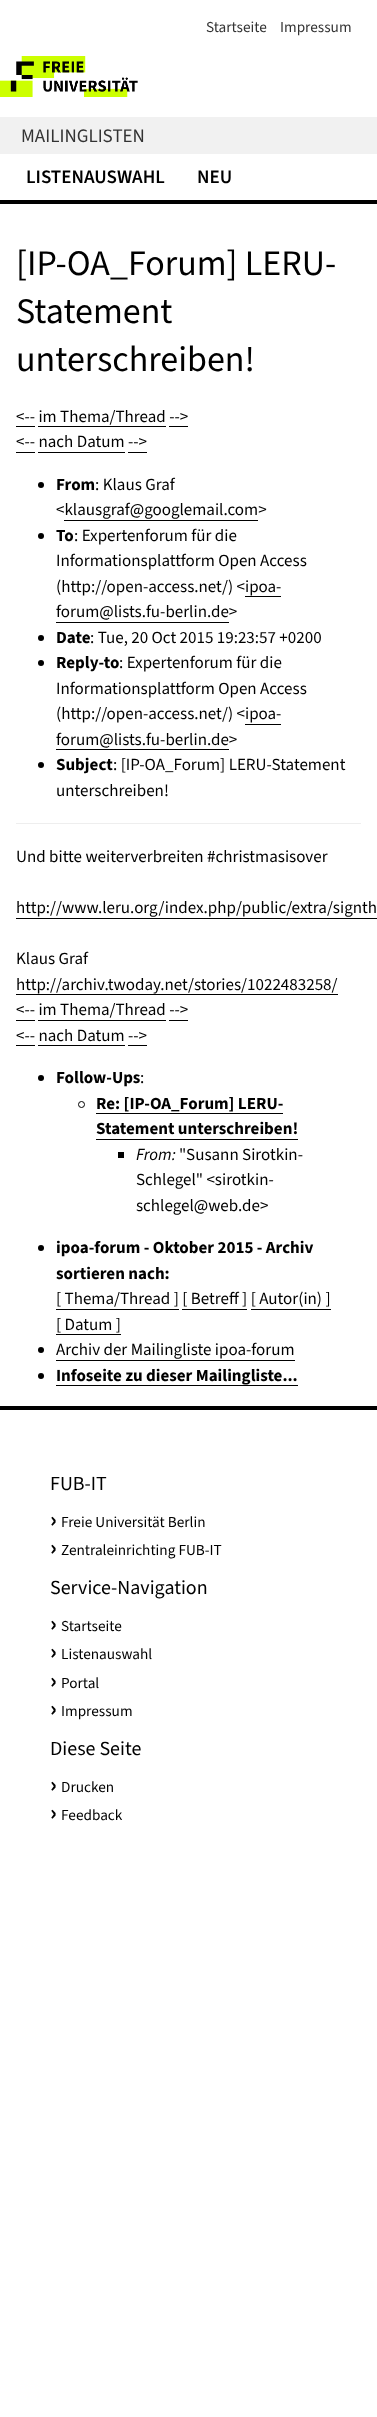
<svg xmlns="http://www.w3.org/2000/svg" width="377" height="2417">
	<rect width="100%" height="100%" fill="#FFFFFF" />
	<g font-family="'Source Sans 3'" font-size="15.25" fill="#333333">
		<text x="206" y="32">Startseite</text>
		<text x="280" y="32">Impressum</text>
	</g>
	<image x="0" y="56" width="138" height="41" href="assets/img1.png" />
	<rect x="0" y="117" width="377" height="37" fill="#F1F1F1" />
	<text x="21" y="142" font-family="'Source Sans 3'" font-size="19" fill="#333333">MAILINGLISTEN</text>
	<rect x="0" y="200" width="377" height="4" fill="#000000" />
	<g font-family="'Source Sans 3'" font-size="19" font-weight="600" fill="#000000">
		<text x="26" y="183">LISTENAUSWAHL</text>
		<text x="197" y="183">NEU</text>
	</g>
	<g font-family="'Source Sans 3'" font-size="36" fill="#000000">
		<text x="16" y="275">[IP-OA_Forum] LERU-</text>
		<text x="16" y="323">Statement</text>
		<text x="16" y="371">unterschreiben!</text>
	</g>
	<text x="16" y="422" font-family="'Source Sans 3'" font-size="17" fill="#000000">&lt;-- im Thema/Thread --&gt;</text>
	<rect x="16" y="426" width="19" height="1" fill="#000000" />
	<rect x="38" y="426" width="128" height="1" fill="#000000" />
	<rect x="169" y="426" width="19" height="1" fill="#000000" />
	<text x="16" y="447" font-family="'Source Sans 3'" font-size="17" fill="#000000">&lt;-- nach Datum --&gt;</text>
	<rect x="16" y="452" width="19" height="1" fill="#000000" />
	<rect x="38" y="452" width="87" height="1" fill="#000000" />
	<rect x="128" y="452" width="19" height="1" fill="#000000" />
	<circle cx="41" cy="485" r="3" fill="#000000" />
	<text x="56" y="490" font-family="'Source Sans 3'" font-size="17" font-weight="700" fill="#000000">From</text>
	<g font-family="'Source Sans 3'" font-size="17" fill="#000000">
		<text x="95" y="490">: Klaus Graf</text>
		<text x="56" y="515">&lt;klausgraf@googlemail.com&gt;</text>
	</g>
	<rect x="64" y="520" width="194" height="1" fill="#000000" />
	<circle cx="41" cy="536" r="3" fill="#000000" />
	<text x="56" y="541" font-family="'Source Sans 3'" font-size="17" font-weight="700" fill="#000000">To</text>
	<g font-family="'Source Sans 3'" font-size="17" fill="#000000">
		<text x="74" y="541">: Expertenforum für die</text>
		<text x="56" y="566">Informationsplattform Open Access</text>
		<text x="56" y="592">(http://open-access.net/) &lt;ipoa-</text>
		<text x="56" y="617">forum@lists.fu-berlin.de&gt;</text>
	</g>
	<rect x="245" y="596" width="36" height="1" fill="#000000" />
	<rect x="56" y="622" width="173" height="1" fill="#000000" />
	<circle cx="41" cy="638" r="3" fill="#000000" />
	<text x="56" y="643" font-family="'Source Sans 3'" font-size="17" font-weight="700" fill="#000000">Date</text>
	<text x="90" y="643" font-family="'Source Sans 3'" font-size="17" fill="#000000">: Tue, 20 Oct 2015 19:23:57 +0200</text>
	<circle cx="41" cy="663" r="3" fill="#000000" />
	<text x="56" y="668" font-family="'Source Sans 3'" font-size="17" font-weight="700" fill="#000000">Reply-to</text>
	<g font-family="'Source Sans 3'" font-size="17" fill="#000000">
		<text x="119" y="668">: Expertenforum für die</text>
		<text x="56" y="694">Informationsplattform Open Access</text>
		<text x="56" y="719">(http://open-access.net/) &lt;ipoa-</text>
		<text x="56" y="745">forum@lists.fu-berlin.de&gt;</text>
	</g>
	<rect x="245" y="724" width="36" height="1" fill="#000000" />
	<rect x="56" y="749" width="173" height="1" fill="#000000" />
	<circle cx="41" cy="765" r="3" fill="#000000" />
	<text x="56" y="770" font-family="'Source Sans 3'" font-size="17" font-weight="700" fill="#000000">Subject</text>
	<g font-family="'Source Sans 3'" font-size="17" fill="#000000">
		<text x="113" y="770">: [IP-OA_Forum] LERU-Statement</text>
		<text x="56" y="796">unterschreiben!</text>
	</g>
	<rect x="16" y="823" width="345" height="1" fill="#EEEEEE" />
	<g font-family="'Source Sans 3'" font-size="17" fill="#000000">
		<text x="16" y="862">Und bitte weiterverbreiten #christmasisover</text>
		<text x="16" y="913">http://www.leru.org/index.php/public/extra/signth</text>
	</g>
	<rect x="16" y="918" width="361" height="1" fill="#000000" />
	<g font-family="'Source Sans 3'" font-size="17" fill="#000000">
		<text x="16" y="964">Klaus Graf</text>
		<text x="16" y="990">http://archiv.twoday.net/stories/1022483258/</text>
	</g>
	<rect x="16" y="994" width="322" height="1" fill="#000000" />
	<text x="16" y="1015" font-family="'Source Sans 3'" font-size="17" fill="#000000">&lt;-- im Thema/Thread --&gt;</text>
	<rect x="16" y="1020" width="19" height="1" fill="#000000" />
	<rect x="38" y="1020" width="128" height="1" fill="#000000" />
	<rect x="169" y="1020" width="19" height="1" fill="#000000" />
	<text x="16" y="1041" font-family="'Source Sans 3'" font-size="17" fill="#000000">&lt;-- nach Datum --&gt;</text>
	<rect x="16" y="1045" width="19" height="1" fill="#000000" />
	<rect x="38" y="1045" width="87" height="1" fill="#000000" />
	<rect x="128" y="1045" width="19" height="1" fill="#000000" />
	<circle cx="41" cy="1078" r="3" fill="#000000" />
	<text x="56" y="1083" font-family="'Source Sans 3'" font-size="17" font-weight="700" fill="#000000">Follow-Ups</text>
	<text x="140" y="1083" font-family="'Source Sans 3'" font-size="17" fill="#000000">:</text>
	<circle cx="81.5" cy="1104.5" r="3" fill="none" stroke="#000000" />
	<text x="96" y="1109" font-family="'Source Sans 3'" font-size="17" font-weight="700" fill="#000000">Re: [IP-OA_Forum] LERU-</text>
	<rect x="96" y="1113" width="187" height="1" fill="#000000" />
	<text x="96" y="1134" font-family="'Source Sans 3'" font-size="17" font-weight="700" fill="#000000">Statement unterschreiben!</text>
	<rect x="96" y="1139" width="202" height="1" fill="#000000" />
	<rect x="118" y="1152" width="6" height="6" fill="#000000" />
	<text x="136" y="1160" font-family="'Source Sans 3'" font-size="17" font-style="italic" fill="#000000">From:</text>
	<g font-family="'Source Sans 3'" font-size="17" fill="#000000">
		<text x="179" y="1160">"Susann Sirotkin-</text>
		<text x="136" y="1185">Schlegel" &lt;sirotkin-</text>
		<text x="136" y="1211">schlegel@web.de&gt;</text>
	</g>
	<circle cx="41" cy="1248" r="3" fill="#000000" />
	<g font-family="'Source Sans 3'" font-size="17" font-weight="700" fill="#000000">
		<text x="56" y="1253">ipoa-forum - Oktober 2015 - Archiv</text>
		<text x="56" y="1279">sortieren nach:</text>
	</g>
	<text x="56" y="1304" font-family="'Source Sans 3'" font-size="17" fill="#000000">[ Thema/Thread ] [ Betreff ] [ Autor(in) ]</text>
	<rect x="56" y="1309" width="123" height="1" fill="#000000" />
	<rect x="182" y="1309" width="65" height="1" fill="#000000" />
	<rect x="251" y="1309" width="80" height="1" fill="#000000" />
	<text x="56" y="1330" font-family="'Source Sans 3'" font-size="17" fill="#000000">[ Datum ]</text>
	<rect x="56" y="1334" width="65" height="1" fill="#000000" />
	<circle cx="41" cy="1350" r="3" fill="#000000" />
	<text x="56" y="1355" font-family="'Source Sans 3'" font-size="17" fill="#000000">Archiv der Mailingliste ipoa-forum</text>
	<rect x="56" y="1360" width="239" height="1" fill="#000000" />
	<circle cx="41" cy="1376" r="3" fill="#000000" />
	<text x="56" y="1381" font-family="'Source Sans 3'" font-size="17" font-weight="700" fill="#000000">Infoseite zu dieser Mailingliste...</text>
	<rect x="56" y="1385" width="242" height="1" fill="#000000" />
	<rect x="0" y="1406" width="377" height="4" fill="#000000" />
	<text x="50" y="1490" font-family="'Source Sans 3'" font-size="20" fill="#000000">FUB-IT</text>
	<text x="50" y="1527" font-family="'Source Sans 3'" font-size="23" font-weight="700" fill="#000000">›</text>
	<text x="61" y="1527" font-family="'Source Sans 3'" font-size="15.25" fill="#000000">Freie Universität Berlin</text>
	<text x="50" y="1555" font-family="'Source Sans 3'" font-size="23" font-weight="700" fill="#000000">›</text>
	<text x="61" y="1555" font-family="'Source Sans 3'" font-size="15.25" fill="#000000">Zentraleinrichting FUB-IT</text>
	<text x="50" y="1594" font-family="'Source Sans 3'" font-size="20" fill="#000000">Service-Navigation</text>
	<text x="50" y="1631" font-family="'Source Sans 3'" font-size="23" font-weight="700" fill="#000000">›</text>
	<text x="61" y="1631" font-family="'Source Sans 3'" font-size="15.25" fill="#000000">Startseite</text>
	<text x="50" y="1659" font-family="'Source Sans 3'" font-size="23" font-weight="700" fill="#000000">›</text>
	<text x="61" y="1659" font-family="'Source Sans 3'" font-size="15.25" fill="#000000">Listenauswahl</text>
	<text x="50" y="1688" font-family="'Source Sans 3'" font-size="23" font-weight="700" fill="#000000">›</text>
	<text x="61" y="1688" font-family="'Source Sans 3'" font-size="15.25" fill="#000000">Portal</text>
	<text x="50" y="1716" font-family="'Source Sans 3'" font-size="23" font-weight="700" fill="#000000">›</text>
	<text x="61" y="1716" font-family="'Source Sans 3'" font-size="15.25" fill="#000000">Impressum</text>
	<text x="50" y="1755" font-family="'Source Sans 3'" font-size="20" fill="#000000">Diese Seite</text>
	<text x="50" y="1792" font-family="'Source Sans 3'" font-size="23" font-weight="700" fill="#000000">›</text>
	<text x="61" y="1792" font-family="'Source Sans 3'" font-size="15.25" fill="#000000">Drucken</text>
	<text x="50" y="1820" font-family="'Source Sans 3'" font-size="23" font-weight="700" fill="#000000">›</text>
	<text x="61" y="1820" font-family="'Source Sans 3'" font-size="15.25" fill="#000000">Feedback</text>
</svg>
